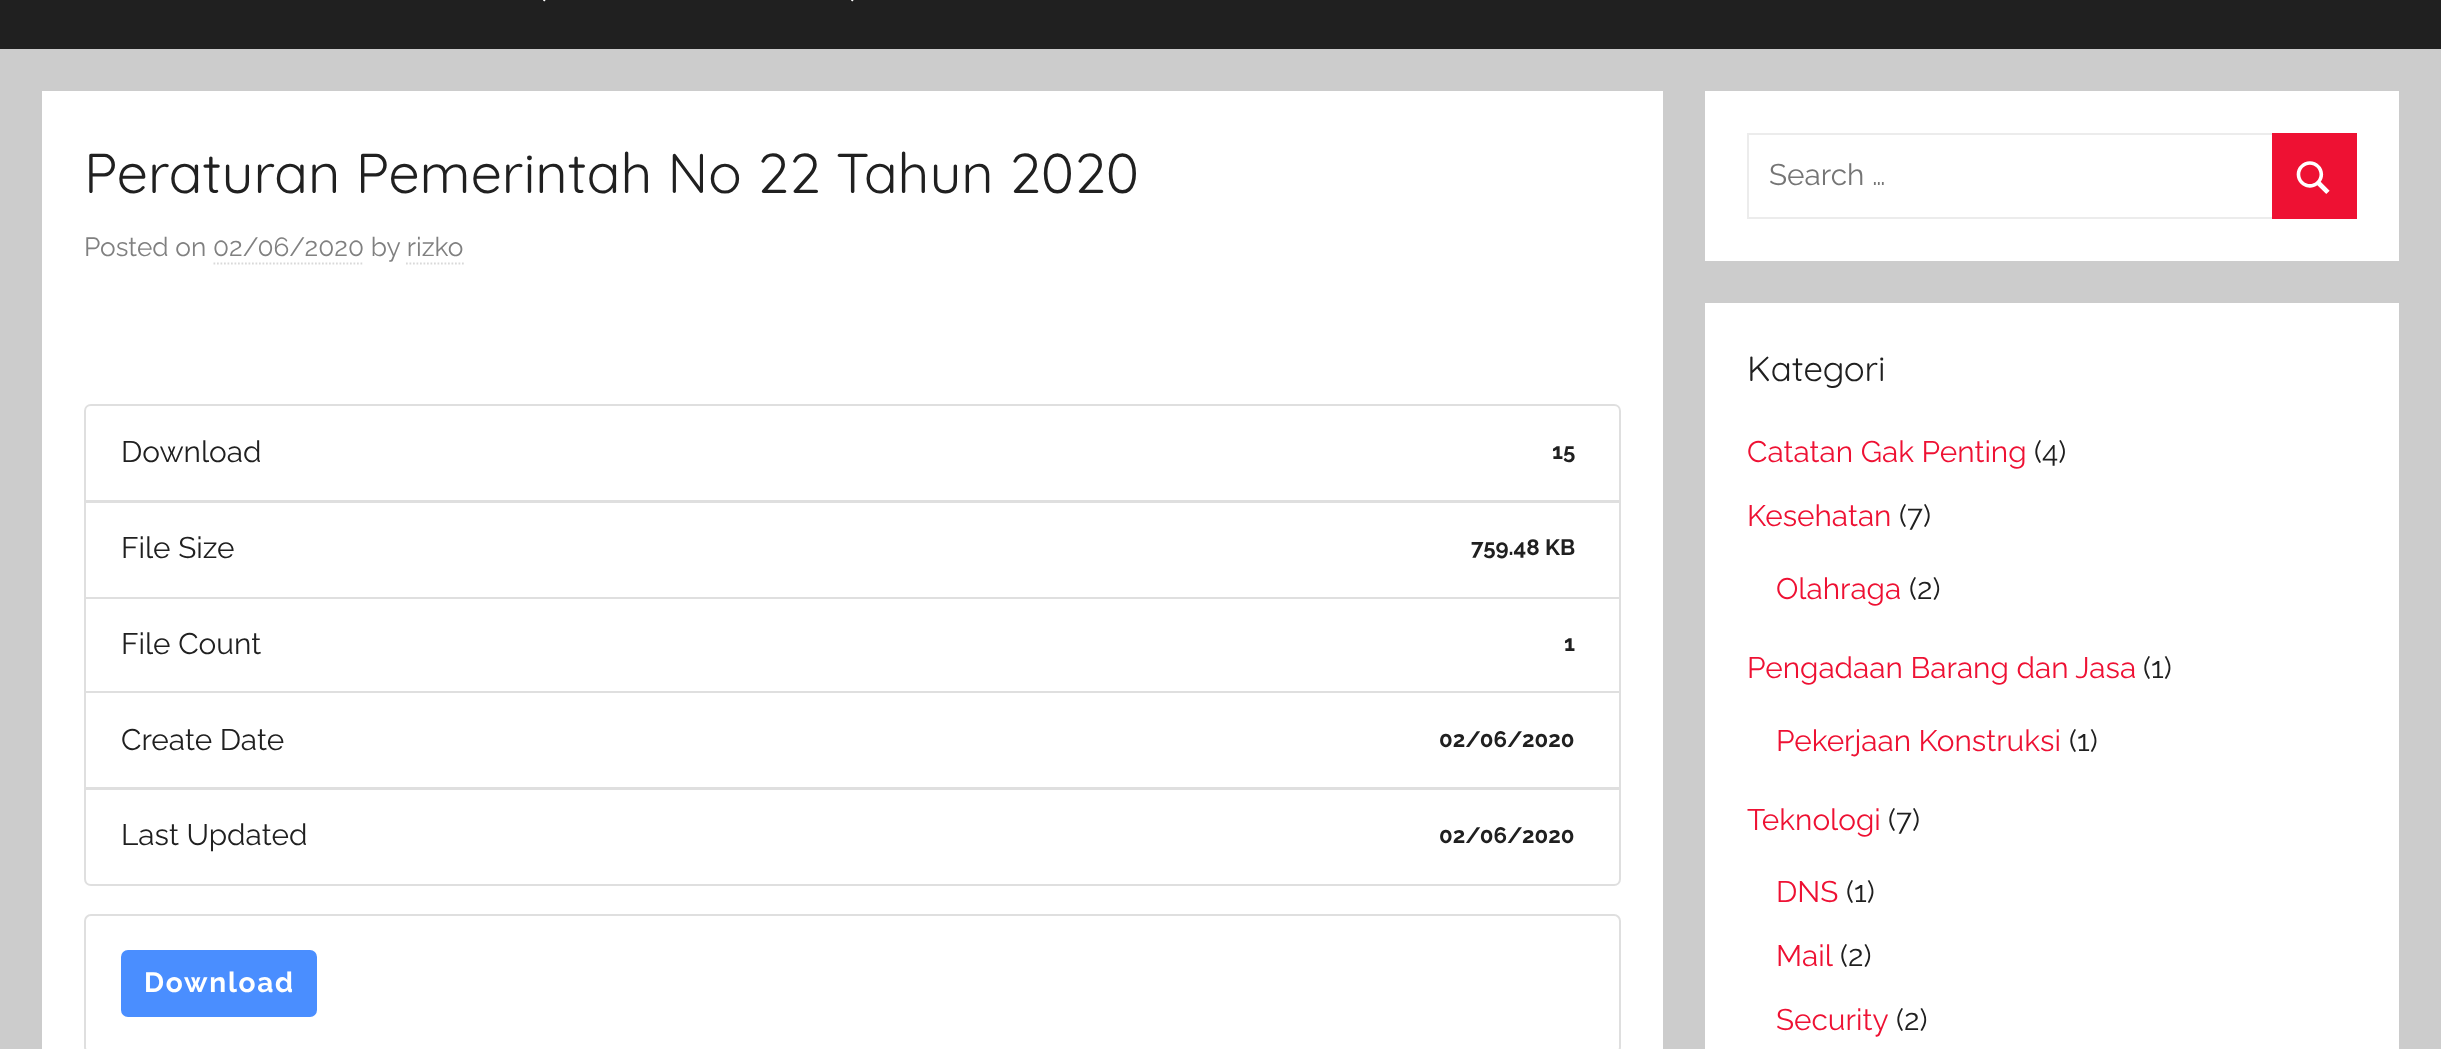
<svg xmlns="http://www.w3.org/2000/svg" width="2441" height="1049">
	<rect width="100%" height="100%" fill="#CCCCCC" />
	<rect x="0" y="0" width="2441" height="49" fill="#202020" />
	<image x="543" y="0" width="3" height="2" href="assets/img1.png" />
	<image x="851" y="0" width="3" height="2" href="assets/img1.png" />
	<rect x="42" y="91" width="1621" height="958" fill="#FFFFFF" />
	<text x="84" y="193" font-family="Quicksand" font-size="56" font-weight="300" fill="#202020">Peraturan Pemerintah No 22 Tahun 2020</text>
	<text x="84" y="256" font-family="Raleway" font-size="26.25" font-weight="100" fill="#808080">Posted on 02/06/2020 by rizko</text>
	<path d="M213.5 263.5H364" fill="none" stroke="#D9D9D9" stroke-width="1.8" stroke-dasharray="1.75 1.75" />
	<path d="M406 263.5H464" fill="none" stroke="#D9D9D9" stroke-width="1.8" stroke-dasharray="1.75 1.75" />
	<path d="M91 405H1614C1617.5 405 1620 407.5 1620 411V501H85V411C85 407.5 87.5 405 91 405Z" fill="none" stroke="#DFDFDF" stroke-width="2" />
	<text x="121" y="462" font-family="Raleway" font-size="29.75" font-weight="100" fill="#202020">Download</text>
	<text x="1552" y="459" font-family="'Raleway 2'" font-size="22.25" font-weight="100" fill="#202020">15</text>
	<rect x="85" y="502" width="1535" height="96" fill="none" stroke="#DFDFDF" stroke-width="2" />
	<text x="121" y="558" font-family="Raleway" font-size="29.75" font-weight="100" fill="#202020">File Size</text>
	<text x="1471" y="555" font-family="'Raleway 2'" font-size="22.25" font-weight="100" fill="#202020">759.48 KB</text>
	<rect x="85" y="598" width="1535" height="94" fill="none" stroke="#DFDFDF" stroke-width="2" />
	<text x="121" y="654" font-family="Raleway" font-size="29.75" font-weight="100" fill="#202020">File Count</text>
	<text x="1564" y="651" font-family="'Raleway 2'" font-size="22.25" font-weight="100" fill="#202020">1</text>
	<rect x="85" y="692" width="1535" height="96" fill="none" stroke="#DFDFDF" stroke-width="2" />
	<text x="121" y="750" font-family="Raleway" font-size="29.75" font-weight="100" fill="#202020">Create Date</text>
	<text x="1439" y="747" font-family="'Raleway 2'" font-size="22.25" font-weight="100" fill="#202020">02/06/2020</text>
	<path d="M85 789H1620V879C1620 882.5 1617.5 885 1614 885H91C87.5 885 85 882.5 85 879Z" fill="#FFFFFF" stroke="#DFDFDF" stroke-width="2" />
	<text x="121" y="845" font-family="Raleway" font-size="29.75" font-weight="100" fill="#202020">Last Updated</text>
	<text x="1439" y="843" font-family="'Raleway 2'" font-size="22.25" font-weight="100" fill="#202020">02/06/2020</text>
	<rect x="85" y="915" width="1535" height="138" rx="6" fill="none" stroke="#DFDFDF" stroke-width="2" />
	<rect x="122" y="951" width="194" height="65" rx="6" fill="#4A8EFF" stroke="#4A8EFF" stroke-width="2" />
	<text x="144" y="992" font-family="'Raleway 2'" font-size="28" font-weight="100" letter-spacing="1.75" fill="#FFFFFF">Download</text>
	<rect x="1705" y="91" width="694" height="170" fill="#FFFFFF" />
	<rect x="1748" y="134" width="608" height="84" fill="none" stroke="#ECECEC" stroke-width="2" />
	<text x="1769" y="185" font-family="Raleway" font-size="29.75" font-weight="100" fill="#757575">Search …</text>
	<rect x="2272" y="133" width="85" height="86" fill="#EE1133" />
	<image x="2296" y="161" width="34" height="33" href="assets/img2.png" />
	<rect x="1705" y="303" width="694" height="746" fill="#FFFFFF" />
	<text x="1747" y="381" font-family="Quicksand" font-size="35" font-weight="300" fill="#202020">Kategori</text>
	<text x="1747" y="462" font-family="Raleway" font-size="29.75" font-weight="100" fill="#EE1133">Catatan Gak Penting</text>
	<text x="2034" y="462" font-family="Raleway" font-size="29.75" font-weight="100" fill="#202020">(4)</text>
	<text x="1747" y="526" font-family="Raleway" font-size="29.75" font-weight="100" fill="#EE1133">Kesehatan</text>
	<text x="1899" y="526" font-family="Raleway" font-size="29.75" font-weight="100" fill="#202020">(7)</text>
	<text x="1776" y="599" font-family="Raleway" font-size="29.75" font-weight="100" fill="#EE1133">Olahraga</text>
	<text x="1909" y="599" font-family="Raleway" font-size="29.75" font-weight="100" fill="#202020">(2)</text>
	<text x="1747" y="678" font-family="Raleway" font-size="29.75" font-weight="100" fill="#EE1133">Pengadaan Barang dan Jasa</text>
	<text x="2143" y="678" font-family="Raleway" font-size="29.75" font-weight="100" fill="#202020">(1)</text>
	<text x="1776" y="751" font-family="Raleway" font-size="29.75" font-weight="100" fill="#EE1133">Pekerjaan Konstruksi</text>
	<text x="2069" y="751" font-family="Raleway" font-size="29.75" font-weight="100" fill="#202020">(1)</text>
	<text x="1747" y="830" font-family="Raleway" font-size="29.75" font-weight="100" fill="#EE1133">Teknologi</text>
	<text x="1888" y="830" font-family="Raleway" font-size="29.75" font-weight="100" fill="#202020">(7)</text>
	<text x="1776" y="902" font-family="Raleway" font-size="29.75" font-weight="100" fill="#EE1133">DNS</text>
	<text x="1846" y="902" font-family="Raleway" font-size="29.75" font-weight="100" fill="#202020">(1)</text>
	<text x="1776" y="966" font-family="Raleway" font-size="29.75" font-weight="100" fill="#EE1133">Mail</text>
	<text x="1840" y="966" font-family="Raleway" font-size="29.75" font-weight="100" fill="#202020">(2)</text>
	<text x="1776" y="1030" font-family="Raleway" font-size="29.75" font-weight="100" fill="#EE1133">Security</text>
	<text x="1896" y="1030" font-family="Raleway" font-size="29.75" font-weight="100" fill="#202020">(2)</text>
</svg>
